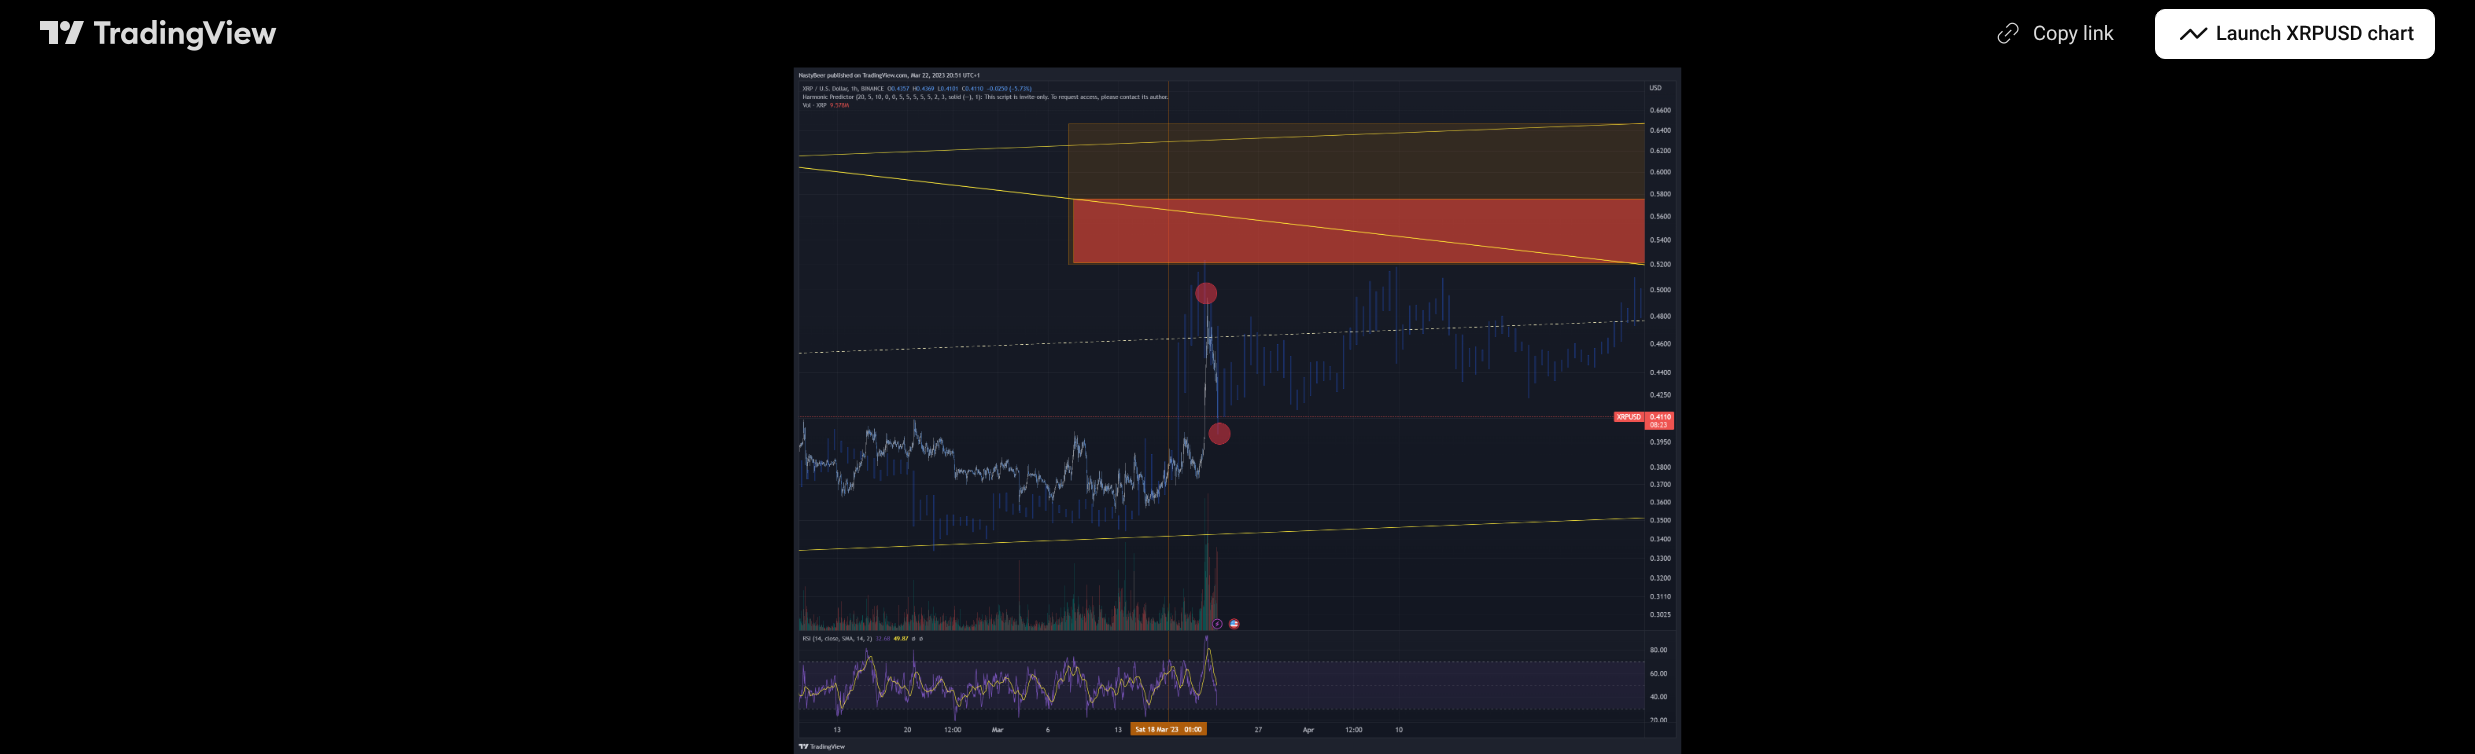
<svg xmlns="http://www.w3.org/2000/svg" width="2475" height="754">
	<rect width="100%" height="100%" fill="#000000" />
	<path d="M58 44H49V30H40V21H58ZM75 44H65L74 21H84Z" fill="#DBDBDB" />
	<circle cx="65" cy="26" r="5" fill="#DBDBDB" />
	<image x="94" y="19" width="183" height="32" href="assets/img1.png" />
	<image x="1997" y="22" width="22" height="22" href="assets/img2.png" />
	<text x="2033" y="40" font-family="Roboto" font-size="20" fill="#DBDBDB">Copy link</text>
	<rect x="2155.5" y="9.5" width="279" height="49" rx="9.5" fill="#FFFFFF" stroke="#FFFFFF" />
	<image x="2180" y="27" width="28" height="13" href="assets/img3.png" />
	<text x="2216" y="40" font-family="Roboto" font-size="20" font-weight="500" fill="#0F0F0F">Launch XRPUSD chart</text>
	<image x="793" y="67" width="889" height="687" href="assets/img4.png" />
</svg>
